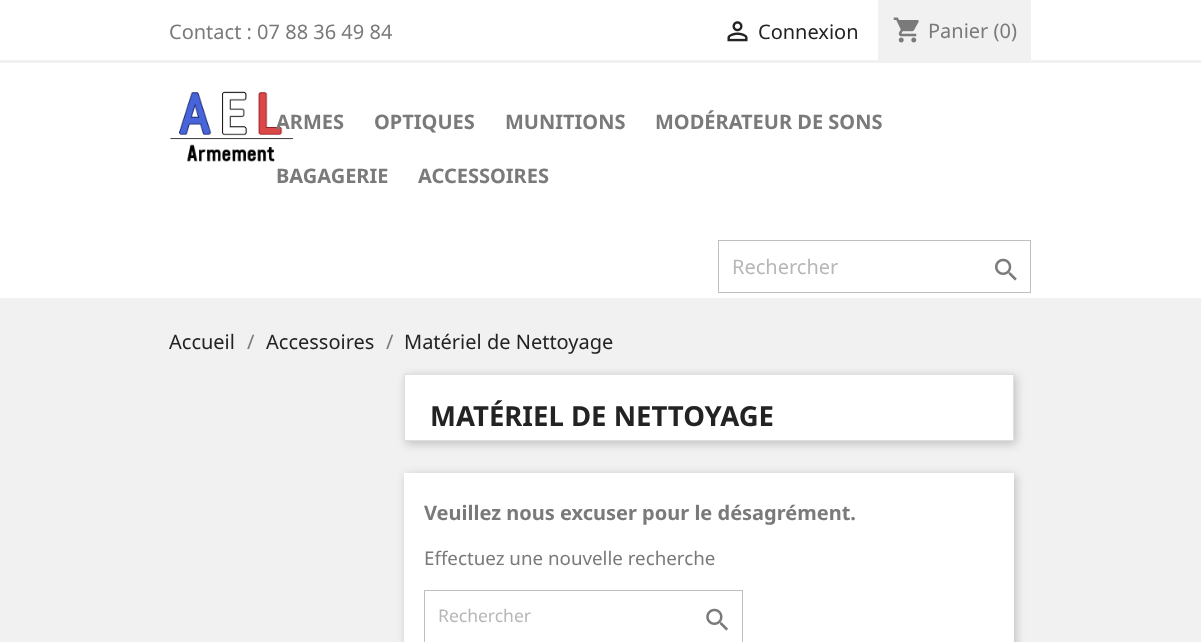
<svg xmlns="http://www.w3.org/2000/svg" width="1201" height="642">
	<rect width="100%" height="100%" fill="#FFFFFF" />
	<rect x="0" y="60" width="1201" height="3" fill="#F1F1F1" />
	<text x="169" y="39" font-family="Noto Sans" font-size="20" fill="#7A7A7A">Contact : 07 88 36 49 84</text>
	<image x="727" y="21" width="21" height="21" href="assets/img1.png" />
	<text x="758" y="39" font-family="Noto Sans" font-size="20" fill="#232323">Connexion</text>
	<rect x="878" y="0" width="153" height="60" fill="#F1F1F1" />
	<image x="893" y="17" width="26" height="26" href="assets/img2.png" />
	<text x="928" y="38" font-family="Noto Sans" font-size="20" fill="#7A7A7A">Panier (0)</text>
	<image x="170" y="91" width="123" height="71" href="assets/img3.png" />
	<g font-family="Noto Sans" font-size="20" font-weight="700" fill="#7A7A7A">
		<text x="276" y="129">ARMES</text>
		<text x="374" y="129">OPTIQUES</text>
		<text x="505" y="129">MUNITIONS</text>
		<text x="655" y="129">MODÉRATEUR DE SONS</text>
		<text x="276" y="183">BAGAGERIE</text>
		<text x="418" y="183">ACCESSOIRES</text>
	</g>
	<rect x="718.5" y="240.5" width="312" height="52" fill="none" stroke="#BFBFBF" />
	<text x="732" y="274" font-family="Noto Sans" font-size="20" fill="#B7B7B7">Rechercher</text>
	<image x="995" y="258" width="22" height="23" href="assets/img4.png" />
	<rect x="0" y="298" width="1201" height="344" fill="#F1F1F1" />
	<text x="169" y="349" font-family="Noto Sans" font-size="20" fill="#232323">Accueil</text>
	<text x="247" y="349" font-family="Noto Sans" font-size="20" fill="#7A7A7A">/</text>
	<text x="266" y="349" font-family="Noto Sans" font-size="20" fill="#232323">Accessoires</text>
	<text x="386" y="349" font-family="Noto Sans" font-size="20" fill="#7A7A7A">/</text>
	<text x="404" y="349" font-family="Noto Sans" font-size="20" fill="#232323">Matériel de Nettoyage</text>
	<rect x="406" y="376" width="610" height="68" fill="#000000" fill-opacity="0.2" filter="blur(5px)" />
	<rect x="404.5" y="374.5" width="609" height="66" fill="#FFFFFF" stroke="#DFDFDF" />
	<text x="430" y="426" font-family="Noto Sans" font-size="27.5" font-weight="700" fill="#232323">MATÉRIEL DE NETTOYAGE</text>
	<rect x="406" y="475" width="610" height="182" fill="#000000" fill-opacity="0.2" filter="blur(5px)" />
	<rect x="404" y="473" width="610" height="169" fill="#FFFFFF" />
	<text x="424" y="520" font-family="Noto Sans" font-size="20" font-weight="700" fill="#7A7A7A">Veuillez nous excuser pour le désagrément.</text>
	<text x="424" y="565" font-family="Noto Sans" font-size="18.75" fill="#7A7A7A">Effectuez une nouvelle recherche</text>
	<rect x="424.5" y="590.5" width="318" height="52" fill="none" stroke="#BFBFBF" />
	<text x="438" y="622" font-family="Noto Sans" font-size="17.5" fill="#B7B7B7">Rechercher</text>
	<image x="706" y="608" width="22" height="23" href="assets/img5.png" />
</svg>
